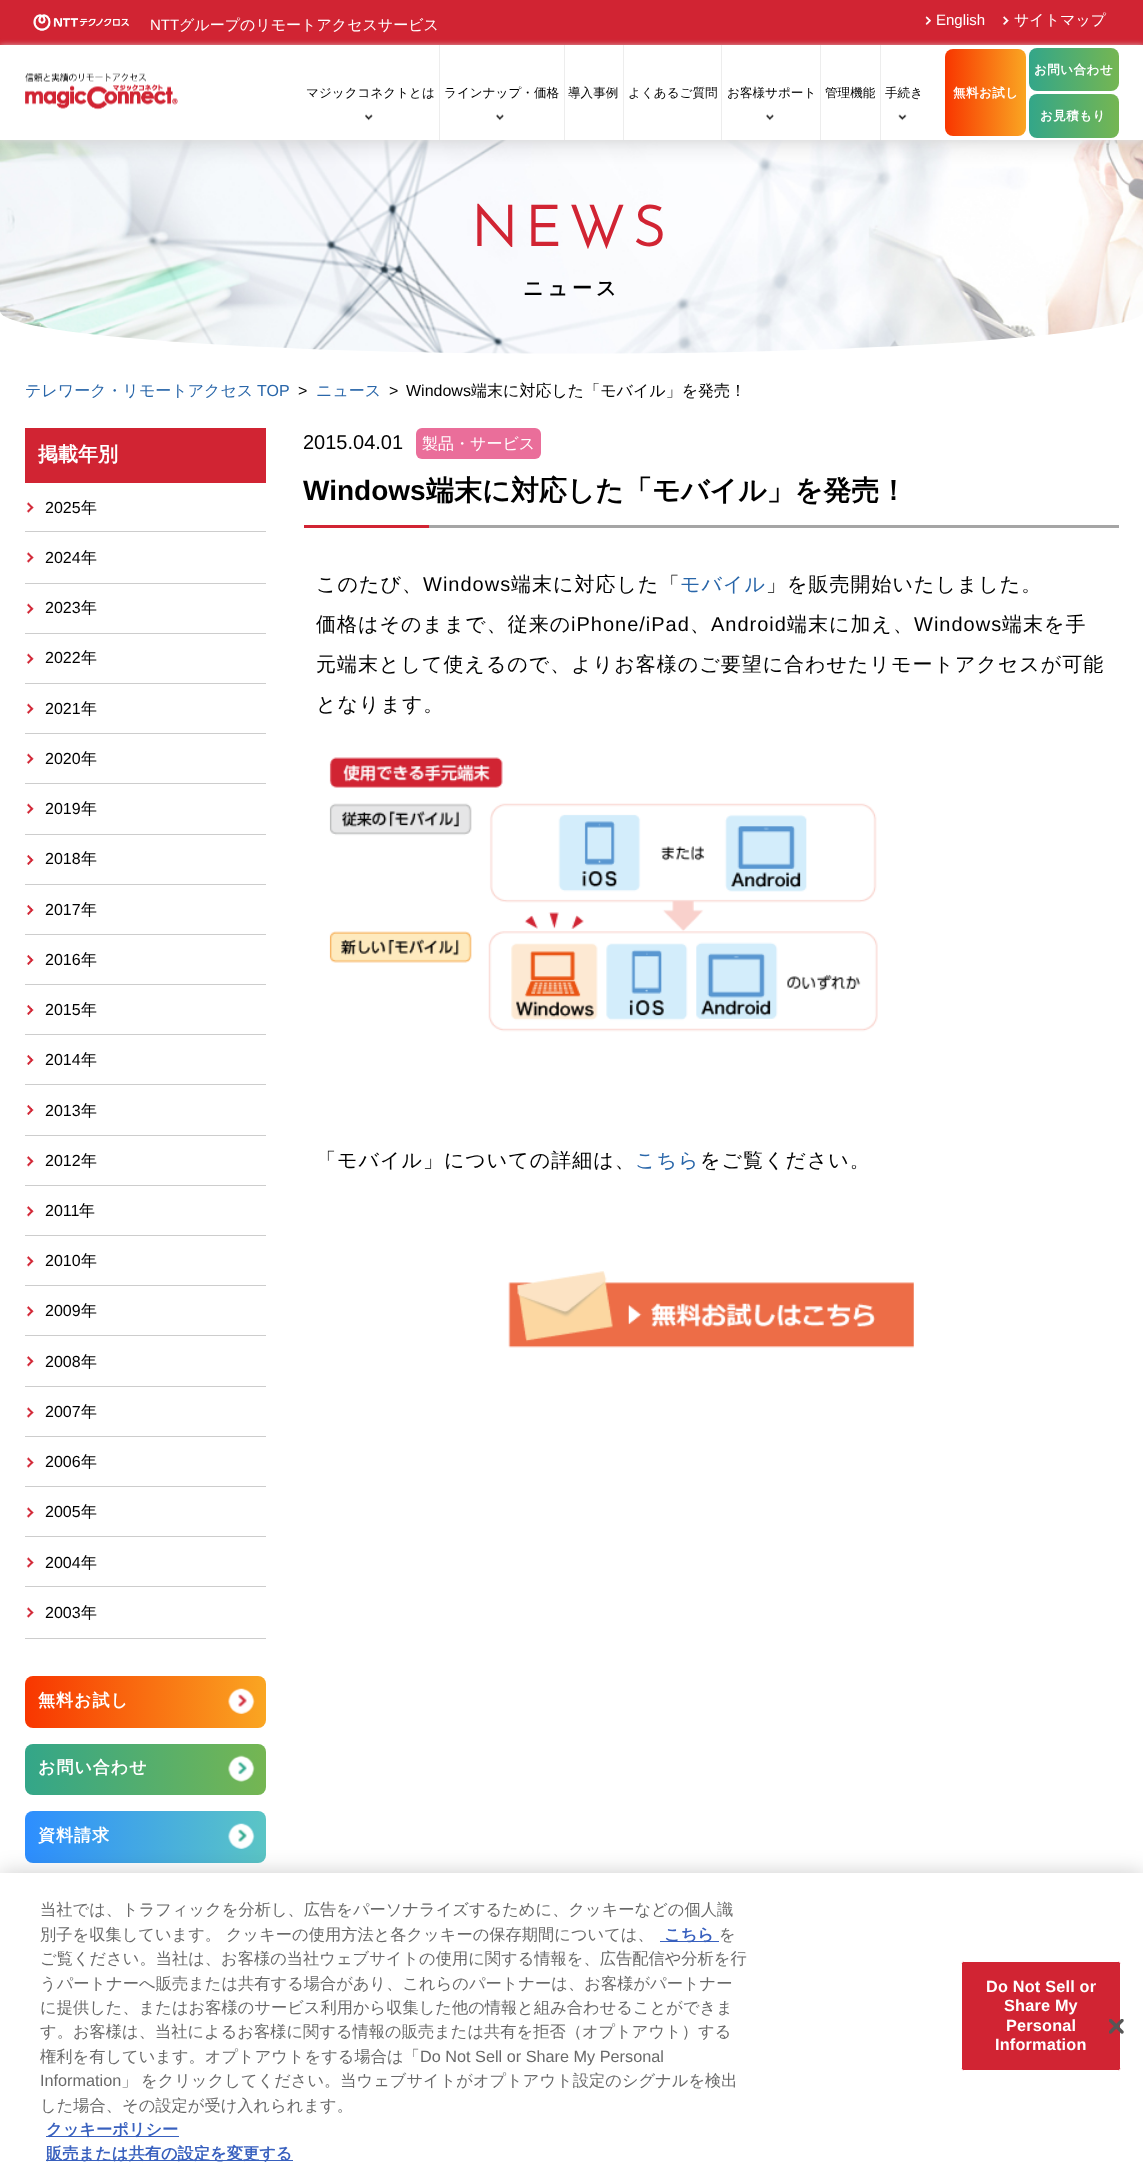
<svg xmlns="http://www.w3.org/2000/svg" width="1143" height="2178">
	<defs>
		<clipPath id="clip1"><path d="M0 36H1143V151H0ZM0 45H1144V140H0Z" clip-rule="evenodd" /></clipPath>
		<linearGradient id="g1" gradientUnits="userSpaceOnUse" x1="864" y1="93" x2="1026" y2="93"><stop offset="0" stop-color="#F83600" /><stop offset="0.5" stop-color="#F83600" /><stop offset="1" stop-color="#FAA622" /></linearGradient>
		<linearGradient id="g2" gradientUnits="userSpaceOnUse" x1="939" y1="69" x2="1119" y2="69"><stop offset="0" stop-color="#33A689" /><stop offset="0.5" stop-color="#33A689" /><stop offset="1" stop-color="#75B652" /></linearGradient>
		<linearGradient id="g3" gradientUnits="userSpaceOnUse" x1="939" y1="116" x2="1119" y2="116"><stop offset="0" stop-color="#33A689" /><stop offset="0.5" stop-color="#33A689" /><stop offset="1" stop-color="#75B652" /></linearGradient>
		<linearGradient id="g4" gradientUnits="userSpaceOnUse" x1="-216" y1="1702" x2="266" y2="1702"><stop offset="0" stop-color="#F83600" /><stop offset="0.5" stop-color="#F83600" /><stop offset="1" stop-color="#FAA622" /></linearGradient>
		<linearGradient id="g5" gradientUnits="userSpaceOnUse" x1="-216" y1="1769" x2="266" y2="1769"><stop offset="0" stop-color="#33A689" /><stop offset="0.5" stop-color="#33A689" /><stop offset="1" stop-color="#75B652" /></linearGradient>
		<linearGradient id="g6" gradientUnits="userSpaceOnUse" x1="-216" y1="1837" x2="266" y2="1837"><stop offset="0" stop-color="#2D8EFF" /><stop offset="0.5" stop-color="#2D8EFF" /><stop offset="1" stop-color="#5BC5C5" /></linearGradient>
	</defs>
	<rect width="100%" height="100%" fill="#FFFFFF" />
	<rect x="0" y="0" width="1143" height="45" fill="#D12433" />
	<image x="33" y="14" width="96" height="17" href="assets/img1.png" />
	<text x="150" y="30" font-family="Liberation Sans" font-size="15" fill="#FFFFFF">NTT</text>
	<text x="179" y="30" font-family="WenQuanYi Zen Hei" font-size="15" font-weight="500" fill="#FFFFFF">グループのリモートアクセスサービス</text>
	<image x="925" y="16" width="6" height="9" href="assets/img2.png" />
	<text x="936" y="25" font-family="Liberation Sans" font-size="15" fill="#FFFFFF">English</text>
	<image x="1002" y="16" width="7" height="9" href="assets/img3.png" />
	<text x="1014" y="25" font-family="WenQuanYi Zen Hei" font-size="15" font-weight="500" fill="#FFFFFF">サイトマップ</text>
	<image x="0" y="140" width="1143" height="214" href="assets/img8.png" />
	<g clip-path="url(#clip1)">
		<rect x="0" y="46" width="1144" height="95" fill="#DBDBDB" filter="blur(3px)" />
	</g>
	<image x="25" y="73" width="153" height="37" href="assets/img4.png" />
	<rect x="439" y="45" width="1" height="95" fill="#EDEDED" />
	<text x="306" y="97" font-family="WenQuanYi Zen Hei" font-size="12.6" font-weight="500" fill="#000000">マジックコネクトとは</text>
	<image x="365" y="114" width="8" height="7" href="assets/img5.png" />
	<rect x="564" y="45" width="1" height="95" fill="#EDEDED" />
	<text x="444" y="97" font-family="WenQuanYi Zen Hei" font-size="12.6" font-weight="500" fill="#000000">ラインナップ・価格</text>
	<image x="496" y="114" width="8" height="7" href="assets/img6.png" />
	<rect x="623" y="45" width="1" height="95" fill="#EDEDED" />
	<text x="568" y="97" font-family="WenQuanYi Zen Hei" font-size="12.6" font-weight="500" fill="#000000">導入事例</text>
	<rect x="721" y="45" width="1" height="95" fill="#EDEDED" />
	<text x="628" y="97" font-family="WenQuanYi Zen Hei" font-size="12.6" font-weight="500" fill="#000000">よくあるご質問</text>
	<rect x="820" y="45" width="1" height="95" fill="#EDEDED" />
	<text x="727" y="97" font-family="WenQuanYi Zen Hei" font-size="12.6" font-weight="500" fill="#000000">お客様サポート</text>
	<image x="766" y="114" width="8" height="7" href="assets/img6.png" />
	<rect x="880" y="45" width="1" height="95" fill="#EDEDED" />
	<g font-family="WenQuanYi Zen Hei" font-size="12.6" font-weight="500" fill="#000000">
		<text x="825" y="97">管理機能</text>
		<text x="885" y="97">手続き</text>
	</g>
	<image x="898" y="114" width="9" height="7" href="assets/img7.png" />
	<rect x="945" y="49" width="81" height="87" rx="8" fill="url(#g1)" />
	<text x="953" y="97" font-family="WenQuanYi Zen Hei" font-size="12.5" font-weight="700" letter-spacing="0.5" fill="#FFFFFF">無料お試し</text>
	<rect x="1029" y="48" width="90" height="43" rx="8" fill="url(#g2)" />
	<text x="1034" y="74" font-family="WenQuanYi Zen Hei" font-size="12.5" font-weight="700" letter-spacing="0.5" fill="#FFFFFF">お問い合わせ</text>
	<rect x="1029" y="94" width="90" height="44" rx="8" fill="url(#g3)" />
	<text x="1040" y="120" font-family="WenQuanYi Zen Hei" font-size="12.5" font-weight="700" letter-spacing="0.5" fill="#FFFFFF">お見積もり</text>
	<text x="471" y="246" font-family="Josefin Sans" font-size="56" font-weight="700" letter-spacing="8" fill="#D12433">NEWS</text>
	<text x="523" y="295" font-family="WenQuanYi Zen Hei" font-size="20" font-weight="700" letter-spacing="4" fill="#000000">ニュース</text>
	<text x="25" y="396" font-family="WenQuanYi Zen Hei" font-size="16" font-weight="500" fill="#2966A9">テレワーク・リモートアクセス</text>
	<text x="257" y="396" font-family="Liberation Sans" font-size="16" fill="#2966A9">TOP</text>
	<text x="298" y="396" font-family="Liberation Sans" font-size="16" fill="#000000">&gt;</text>
	<text x="316" y="396" font-family="WenQuanYi Zen Hei" font-size="16" font-weight="500" fill="#2966A9">ニュース</text>
	<g font-family="Liberation Sans" font-size="16" fill="#000000">
		<text x="389" y="396">&gt;</text>
		<text x="406" y="396">Windows</text>
	</g>
	<text x="471" y="396" font-family="WenQuanYi Zen Hei" font-size="16" font-weight="500" fill="#000000">端末に対応した「モバイル」を発売！</text>
	<rect x="25" y="428" width="241" height="55" fill="#D12433" />
	<text x="38" y="461" font-family="WenQuanYi Zen Hei" font-size="20" font-weight="700" fill="#FFFFFF">掲載年別</text>
	<image x="26" y="502" width="8" height="11" href="assets/img9.png" />
	<rect x="25" y="531" width="241" height="1" fill="#CDCDCD" />
	<text x="45" y="513" font-family="Liberation Sans" font-size="16" fill="#000000">2025</text>
	<text x="81" y="513" font-family="WenQuanYi Zen Hei" font-size="16" font-weight="500" fill="#000000">年</text>
	<image x="26" y="552" width="8" height="11" href="assets/img9.png" />
	<rect x="25" y="583" width="241" height="1" fill="#CDCDCD" />
	<text x="45" y="563" font-family="Liberation Sans" font-size="16" fill="#000000">2024</text>
	<text x="81" y="563" font-family="WenQuanYi Zen Hei" font-size="16" font-weight="500" fill="#000000">年</text>
	<image x="26" y="603" width="8" height="11" href="assets/img10.png" />
	<rect x="25" y="633" width="241" height="1" fill="#CDCDCD" />
	<text x="45" y="613" font-family="Liberation Sans" font-size="16" fill="#000000">2023</text>
	<text x="81" y="613" font-family="WenQuanYi Zen Hei" font-size="16" font-weight="500" fill="#000000">年</text>
	<image x="26" y="653" width="8" height="11" href="assets/img10.png" />
	<rect x="25" y="683" width="241" height="1" fill="#CDCDCD" />
	<text x="45" y="663" font-family="Liberation Sans" font-size="16" fill="#000000">2022</text>
	<text x="81" y="663" font-family="WenQuanYi Zen Hei" font-size="16" font-weight="500" fill="#000000">年</text>
	<image x="26" y="703" width="8" height="11" href="assets/img10.png" />
	<rect x="25" y="733" width="241" height="1" fill="#CDCDCD" />
	<text x="45" y="714" font-family="Liberation Sans" font-size="16" fill="#000000">2021</text>
	<text x="81" y="714" font-family="WenQuanYi Zen Hei" font-size="16" font-weight="500" fill="#000000">年</text>
	<image x="26" y="753" width="8" height="11" href="assets/img10.png" />
	<rect x="25" y="783" width="241" height="1" fill="#CDCDCD" />
	<text x="45" y="764" font-family="Liberation Sans" font-size="16" fill="#000000">2020</text>
	<text x="81" y="764" font-family="WenQuanYi Zen Hei" font-size="16" font-weight="500" fill="#000000">年</text>
	<image x="26" y="803" width="8" height="11" href="assets/img10.png" />
	<rect x="25" y="834" width="241" height="1" fill="#CDCDCD" />
	<text x="45" y="814" font-family="Liberation Sans" font-size="16" fill="#000000">2019</text>
	<text x="81" y="814" font-family="WenQuanYi Zen Hei" font-size="16" font-weight="500" fill="#000000">年</text>
	<image x="26" y="855" width="8" height="10" href="assets/img11.png" />
	<rect x="25" y="884" width="241" height="1" fill="#CDCDCD" />
	<text x="45" y="864" font-family="Liberation Sans" font-size="16" fill="#000000">2018</text>
	<text x="81" y="864" font-family="WenQuanYi Zen Hei" font-size="16" font-weight="500" fill="#000000">年</text>
	<image x="26" y="905" width="8" height="10" href="assets/img11.png" />
	<rect x="25" y="934" width="241" height="1" fill="#CDCDCD" />
	<text x="45" y="915" font-family="Liberation Sans" font-size="16" fill="#000000">2017</text>
	<text x="81" y="915" font-family="WenQuanYi Zen Hei" font-size="16" font-weight="500" fill="#000000">年</text>
	<image x="26" y="955" width="8" height="10" href="assets/img11.png" />
	<rect x="25" y="984" width="241" height="1" fill="#CDCDCD" />
	<text x="45" y="965" font-family="Liberation Sans" font-size="16" fill="#000000">2016</text>
	<text x="81" y="965" font-family="WenQuanYi Zen Hei" font-size="16" font-weight="500" fill="#000000">年</text>
	<image x="26" y="1005" width="8" height="10" href="assets/img12.png" />
	<rect x="25" y="1034" width="241" height="1" fill="#CDCDCD" />
	<text x="45" y="1015" font-family="Liberation Sans" font-size="16" fill="#000000">2015</text>
	<text x="81" y="1015" font-family="WenQuanYi Zen Hei" font-size="16" font-weight="500" fill="#000000">年</text>
	<image x="26" y="1055" width="8" height="10" href="assets/img11.png" />
	<rect x="25" y="1084" width="241" height="1" fill="#CDCDCD" />
	<text x="45" y="1065" font-family="Liberation Sans" font-size="16" fill="#000000">2014</text>
	<text x="81" y="1065" font-family="WenQuanYi Zen Hei" font-size="16" font-weight="500" fill="#000000">年</text>
	<image x="26" y="1105" width="8" height="10" href="assets/img11.png" />
	<rect x="25" y="1135" width="241" height="1" fill="#CDCDCD" />
	<text x="45" y="1116" font-family="Liberation Sans" font-size="16" fill="#000000">2013</text>
	<text x="81" y="1116" font-family="WenQuanYi Zen Hei" font-size="16" font-weight="500" fill="#000000">年</text>
	<image x="26" y="1156" width="8" height="11" href="assets/img13.png" />
	<rect x="25" y="1185" width="241" height="1" fill="#CDCDCD" />
	<text x="45" y="1166" font-family="Liberation Sans" font-size="16" fill="#000000">2012</text>
	<text x="81" y="1166" font-family="WenQuanYi Zen Hei" font-size="16" font-weight="500" fill="#000000">年</text>
	<image x="26" y="1206" width="8" height="11" href="assets/img13.png" />
	<rect x="25" y="1235" width="241" height="1" fill="#CDCDCD" />
	<text x="45" y="1216" font-family="Liberation Sans" font-size="16" fill="#000000">2011</text>
	<text x="79" y="1216" font-family="WenQuanYi Zen Hei" font-size="16" font-weight="500" fill="#000000">年</text>
	<image x="26" y="1256" width="8" height="11" href="assets/img13.png" />
	<rect x="25" y="1285" width="241" height="1" fill="#CDCDCD" />
	<text x="45" y="1266" font-family="Liberation Sans" font-size="16" fill="#000000">2010</text>
	<text x="81" y="1266" font-family="WenQuanYi Zen Hei" font-size="16" font-weight="500" fill="#000000">年</text>
	<image x="26" y="1306" width="8" height="11" href="assets/img13.png" />
	<rect x="25" y="1335" width="241" height="1" fill="#CDCDCD" />
	<text x="45" y="1316" font-family="Liberation Sans" font-size="16" fill="#000000">2009</text>
	<text x="81" y="1316" font-family="WenQuanYi Zen Hei" font-size="16" font-weight="500" fill="#000000">年</text>
	<image x="26" y="1356" width="8" height="11" href="assets/img13.png" />
	<rect x="25" y="1386" width="241" height="1" fill="#CDCDCD" />
	<text x="45" y="1367" font-family="Liberation Sans" font-size="16" fill="#000000">2008</text>
	<text x="81" y="1367" font-family="WenQuanYi Zen Hei" font-size="16" font-weight="500" fill="#000000">年</text>
	<image x="26" y="1407" width="8" height="11" href="assets/img14.png" />
	<rect x="25" y="1436" width="241" height="1" fill="#CDCDCD" />
	<text x="45" y="1417" font-family="Liberation Sans" font-size="16" fill="#000000">2007</text>
	<text x="81" y="1417" font-family="WenQuanYi Zen Hei" font-size="16" font-weight="500" fill="#000000">年</text>
	<image x="26" y="1457" width="8" height="11" href="assets/img14.png" />
	<rect x="25" y="1486" width="241" height="1" fill="#CDCDCD" />
	<text x="45" y="1467" font-family="Liberation Sans" font-size="16" fill="#000000">2006</text>
	<text x="81" y="1467" font-family="WenQuanYi Zen Hei" font-size="16" font-weight="500" fill="#000000">年</text>
	<image x="26" y="1507" width="8" height="11" href="assets/img14.png" />
	<rect x="25" y="1536" width="241" height="1" fill="#CDCDCD" />
	<text x="45" y="1517" font-family="Liberation Sans" font-size="16" fill="#000000">2005</text>
	<text x="81" y="1517" font-family="WenQuanYi Zen Hei" font-size="16" font-weight="500" fill="#000000">年</text>
	<image x="26" y="1557" width="8" height="11" href="assets/img14.png" />
	<rect x="25" y="1586" width="241" height="1" fill="#CDCDCD" />
	<text x="45" y="1568" font-family="Liberation Sans" font-size="16" fill="#000000">2004</text>
	<text x="81" y="1568" font-family="WenQuanYi Zen Hei" font-size="16" font-weight="500" fill="#000000">年</text>
	<image x="26" y="1607" width="8" height="11" href="assets/img14.png" />
	<rect x="25" y="1638" width="241" height="1" fill="#CDCDCD" />
	<text x="45" y="1618" font-family="Liberation Sans" font-size="16" fill="#000000">2003</text>
	<text x="81" y="1618" font-family="WenQuanYi Zen Hei" font-size="16" font-weight="500" fill="#000000">年</text>
	<rect x="25" y="1676" width="241" height="52" rx="8" fill="url(#g4)" />
	<text x="38" y="1706" font-family="WenQuanYi Zen Hei" font-size="17" font-weight="700" letter-spacing="1" fill="#FFFFFF">無料お試し</text>
	<image x="228" y="1688" width="27" height="26" href="assets/img15.png" />
	<rect x="25" y="1744" width="241" height="51" rx="8" fill="url(#g5)" />
	<text x="38" y="1773" font-family="WenQuanYi Zen Hei" font-size="17" font-weight="700" letter-spacing="1" fill="#FFFFFF">お問い合わせ</text>
	<image x="228" y="1755" width="27" height="27" href="assets/img16.png" />
	<rect x="25" y="1811" width="241" height="52" rx="8" fill="url(#g6)" />
	<text x="38" y="1841" font-family="WenQuanYi Zen Hei" font-size="17" font-weight="700" letter-spacing="1" fill="#FFFFFF">資料請求</text>
	<image x="228" y="1823" width="27" height="26" href="assets/img17.png" />
	<text x="303" y="449" font-family="Liberation Sans" font-size="20" fill="#000000">2015.04.01</text>
	<rect x="416" y="428" width="125" height="31" rx="6" fill="#EA6E9A" />
	<text x="422" y="449" font-family="WenQuanYi Zen Hei" font-size="16" font-weight="500" fill="#FFFFFF">製品・サービス</text>
	<rect x="429" y="525" width="690" height="3" fill="#A5A5A5" />
	<text x="303" y="500" font-family="Liberation Sans" font-size="28" font-weight="700" fill="#000000">Windows</text>
	<text x="426" y="500" font-family="WenQuanYi Zen Hei" font-size="28" font-weight="700" fill="#000000">端末に対応した「モバイル」を発売！</text>
	<rect x="304" y="525" width="125" height="3" fill="#D12433" />
	<text x="316" y="591" font-family="WenQuanYi Zen Hei" font-size="20" font-weight="500" letter-spacing="1" fill="#000000">このたび、</text>
	<text x="423" y="591" font-family="Liberation Sans" font-size="20" letter-spacing="1" fill="#000000">Windows</text>
	<text x="511" y="591" font-family="WenQuanYi Zen Hei" font-size="20" font-weight="500" letter-spacing="1" fill="#000000">端末に対応した「</text>
	<text x="680" y="591" font-family="WenQuanYi Zen Hei" font-size="20" font-weight="500" letter-spacing="1" fill="#2966A9">モバイル</text>
	<g font-family="WenQuanYi Zen Hei" font-size="20" font-weight="500" letter-spacing="1" fill="#000000">
		<text x="766" y="591">」を販売開始いたしました。</text>
		<text x="316" y="631">価格はそのままで、従来の</text>
	</g>
	<text x="571" y="631" font-family="Liberation Sans" font-size="20" letter-spacing="1" fill="#000000">iPhone/iPad</text>
	<text x="690" y="631" font-family="WenQuanYi Zen Hei" font-size="20" font-weight="500" letter-spacing="1" fill="#000000">、</text>
	<text x="711" y="631" font-family="Liberation Sans" font-size="20" letter-spacing="1" fill="#000000">Android</text>
	<text x="787" y="631" font-family="WenQuanYi Zen Hei" font-size="20" font-weight="500" letter-spacing="1" fill="#000000">端末に加え、</text>
	<text x="914" y="631" font-family="Liberation Sans" font-size="20" letter-spacing="1" fill="#000000">Windows</text>
	<g font-family="WenQuanYi Zen Hei" font-size="20" font-weight="500" letter-spacing="1" fill="#000000">
		<text x="1002" y="631">端末を手</text>
		<text x="316" y="671">元端末として使えるので、よりお客様のご要望に合わせたリモートアクセスが可能</text>
		<text x="316" y="711">となります。</text>
	</g>
	<image x="329" y="757" width="549" height="275" href="assets/img18.png" />
	<text x="316" y="1167" font-family="WenQuanYi Zen Hei" font-size="20" font-weight="500" letter-spacing="1" fill="#000000">「モバイル」についての詳細は、</text>
	<text x="635" y="1167" font-family="WenQuanYi Zen Hei" font-size="20" font-weight="500" letter-spacing="1" fill="#2966A9">こちら</text>
	<text x="700" y="1167" font-family="WenQuanYi Zen Hei" font-size="20" font-weight="500" letter-spacing="1" fill="#000000">をご覧ください。</text>
	<image x="508" y="1271" width="406" height="77" href="assets/img19.png" />
	<rect x="0" y="1873" width="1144" height="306" fill="#000000" fill-opacity="0.2" filter="blur(11px)" />
	<rect x="0" y="1873" width="1143" height="305" fill="#FFFFFF" />
	<g font-family="WenQuanYi Zen Hei" font-size="16.25" font-weight="500" fill="#696969">
		<text x="40" y="1915">当社では、トラフィックを分析し、広告をパーソナライズするために、クッキーなどの個人識</text>
		<text x="40" y="1940">別子を収集しています。 クッキーの使用方法と各クッキーの保存期間については、</text>
	</g>
	<rect x="660" y="1941" width="59" height="1" fill="#3860BE" />
	<text x="664" y="1940" font-family="WenQuanYi Zen Hei" font-size="16.25" font-weight="700" fill="#3860BE">こちら</text>
	<g font-family="WenQuanYi Zen Hei" font-size="16.25" font-weight="500" fill="#696969">
		<text x="719" y="1940">を</text>
		<text x="40" y="1964">ご覧ください。当社は、お客様の当社ウェブサイトの使用に関する情報を、広告配信や分析を行</text>
		<text x="40" y="1989">うパートナーへ販売または共有する場合があり、これらのパートナーは、お客様がパートナー</text>
		<text x="40" y="2013">に提供した、またはお客様のサービス利用から収集した他の情報と組み合わせることができま</text>
		<text x="40" y="2037">す。お客様は、当社によるお客様に関する情報の販売または共有を拒否（オプトアウト）する</text>
		<text x="40" y="2062">権利を有しています。オプトアウトをする場合は「</text>
	</g>
	<g font-family="Liberation Sans" font-size="16.25" fill="#696969">
		<text x="420" y="2062">Do Not Sell or Share My Personal</text>
		<text x="40" y="2086">Information</text>
	</g>
	<g font-family="WenQuanYi Zen Hei" font-size="16.25" font-weight="500" fill="#696969">
		<text x="121" y="2086" word-spacing="-1">」 をクリックしてください。当ウェブサイトがオプトアウト設定のシグナルを検出</text>
		<text x="40" y="2111">した場合、その設定が受け入れられます。</text>
	</g>
	<rect x="46" y="2136" width="133" height="1" fill="#3860BE" />
	<text x="46" y="2135" font-family="WenQuanYi Zen Hei" font-size="16.25" font-weight="700" fill="#3860BE">クッキーポリシー</text>
	<rect x="46" y="2160" width="247" height="1" fill="#3860BE" />
	<text x="46" y="2159" font-family="WenQuanYi Zen Hei" font-size="16.25" font-weight="700" fill="#3860BE">販売または共有の設定を変更する</text>
	<rect x="961.5" y="1961.5" width="159" height="109" rx="2" fill="#D12433" stroke="#FFFFFF" />
	<g font-family="Liberation Sans" font-size="16.25" font-weight="700" letter-spacing="0.2" fill="#FFFFFF">
		<text x="986" y="1992">Do Not Sell or</text>
		<text x="1004" y="2011">Share My</text>
		<text x="1006" y="2031">Personal</text>
		<text x="995" y="2050">Information</text>
	</g>
	<image x="1109" y="2019" width="15" height="15" href="assets/img20.png" />
</svg>
